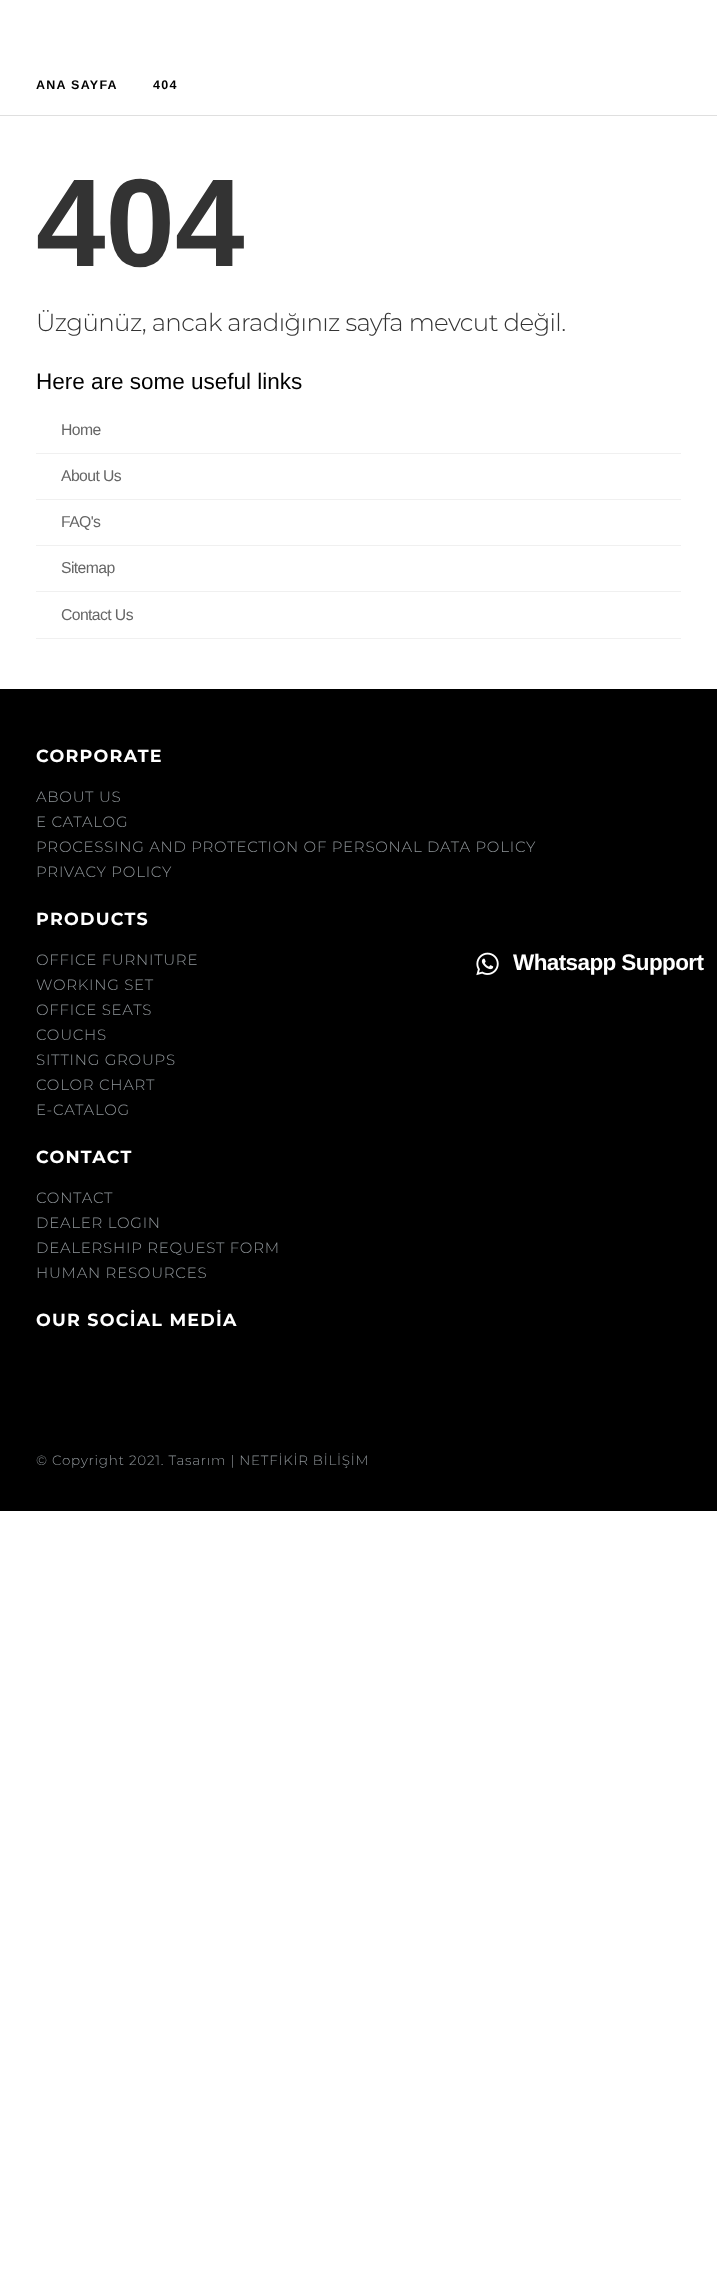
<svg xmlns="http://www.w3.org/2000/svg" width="717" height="2271">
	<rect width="100%" height="100%" fill="#FFFFFF" />
	<rect x="0" y="115" width="717" height="1" fill="#DFDFDF" />
	<g font-family="Liberation Sans" font-size="12.5" font-weight="700" letter-spacing="1.25" fill="#000000">
		<text x="36" y="89">ANA SAYFA</text>
		<text x="153" y="89">404</text>
	</g>
	<text x="36" y="266" font-family="Liberation Sans" font-size="125" font-weight="700" fill="#333333">404</text>
	<text x="36" y="331" font-family="Montserrat" font-size="24.5" font-weight="300" letter-spacing="-0.6" fill="#333333">Üzgünüz, ancak aradığınız sayfa mevcut değil.</text>
	<text x="36" y="389" font-family="Liberation Sans" font-size="22.5" fill="#000000">Here are some useful links</text>
	<rect x="36" y="453" width="645" height="1" fill="#F0F0F0" />
	<text x="61" y="435" font-family="Liberation Sans" font-size="15.75" letter-spacing="-0.6" fill="#666666">Home</text>
	<rect x="36" y="499" width="645" height="1" fill="#F0F0F0" />
	<text x="61" y="481" font-family="Liberation Sans" font-size="15.75" letter-spacing="-0.6" fill="#666666">About Us</text>
	<rect x="36" y="545" width="645" height="1" fill="#F0F0F0" />
	<text x="61" y="527" font-family="Liberation Sans" font-size="15.75" letter-spacing="-0.6" fill="#666666">FAQ's</text>
	<rect x="36" y="591" width="645" height="1" fill="#F0F0F0" />
	<text x="61" y="573" font-family="Liberation Sans" font-size="15.75" letter-spacing="-0.6" fill="#666666">Sitemap</text>
	<rect x="36" y="638" width="645" height="1" fill="#F0F0F0" />
	<text x="61" y="620" font-family="Liberation Sans" font-size="15.75" letter-spacing="-0.6" fill="#666666">Contact Us</text>
	<rect x="0" y="689" width="717" height="822" fill="#000000" />
	<text x="36" y="762" font-family="Montserrat" font-size="17.5" font-weight="700" letter-spacing="1.25" fill="#FFFFFF">CORPORATE</text>
	<g font-family="Montserrat" font-size="15" font-weight="300" letter-spacing="0.75" fill="#90969A">
		<text x="36" y="802">ABOUT US</text>
		<text x="36" y="827">E CATALOG</text>
		<text x="36" y="852">PROCESSING AND PROTECTION OF PERSONAL DATA POLICY</text>
		<text x="36" y="877">PRIVACY POLICY</text>
	</g>
	<text x="36" y="925" font-family="Montserrat" font-size="17.5" font-weight="700" letter-spacing="1.25" fill="#FFFFFF">PRODUCTS</text>
	<g font-family="Montserrat" font-size="15" font-weight="300" letter-spacing="0.75" fill="#90969A">
		<text x="36" y="965">OFFICE FURNITURE</text>
		<text x="36" y="990">WORKING SET</text>
		<text x="36" y="1015">OFFICE SEATS</text>
		<text x="36" y="1040">COUCHS</text>
		<text x="36" y="1065">SITTING GROUPS</text>
		<text x="36" y="1090">COLOR CHART</text>
		<text x="36" y="1115">E-CATALOG</text>
	</g>
	<text x="36" y="1163" font-family="Montserrat" font-size="17.5" font-weight="700" letter-spacing="1.25" fill="#FFFFFF">CONTACT</text>
	<g font-family="Montserrat" font-size="15" font-weight="300" letter-spacing="0.75" fill="#90969A">
		<text x="36" y="1203">CONTACT</text>
		<text x="36" y="1228">DEALER LOGIN</text>
		<text x="36" y="1253">DEALERSHIP REQUEST FORM</text>
		<text x="36" y="1278">HUMAN RESOURCES</text>
	</g>
	<text x="36" y="1326" font-family="Montserrat" font-size="17.5" font-weight="700" letter-spacing="1.25" fill="#FFFFFF">OUR SOCİAL MEDİA</text>
	<text x="36" y="1465" font-family="Montserrat" font-size="13.5" font-weight="300" letter-spacing="0.75" fill="#90969A">© Copyright 2021. Tasarım | NETFİKİR BİLİŞİM</text>
	<image x="476" y="952" width="23" height="24" href="assets/img1.png" />
	<text x="513" y="970" font-family="Liberation Sans" font-size="22.5" font-weight="700" letter-spacing="-0.6" fill="#FFFFFF">Whatsapp Support</text>
</svg>
